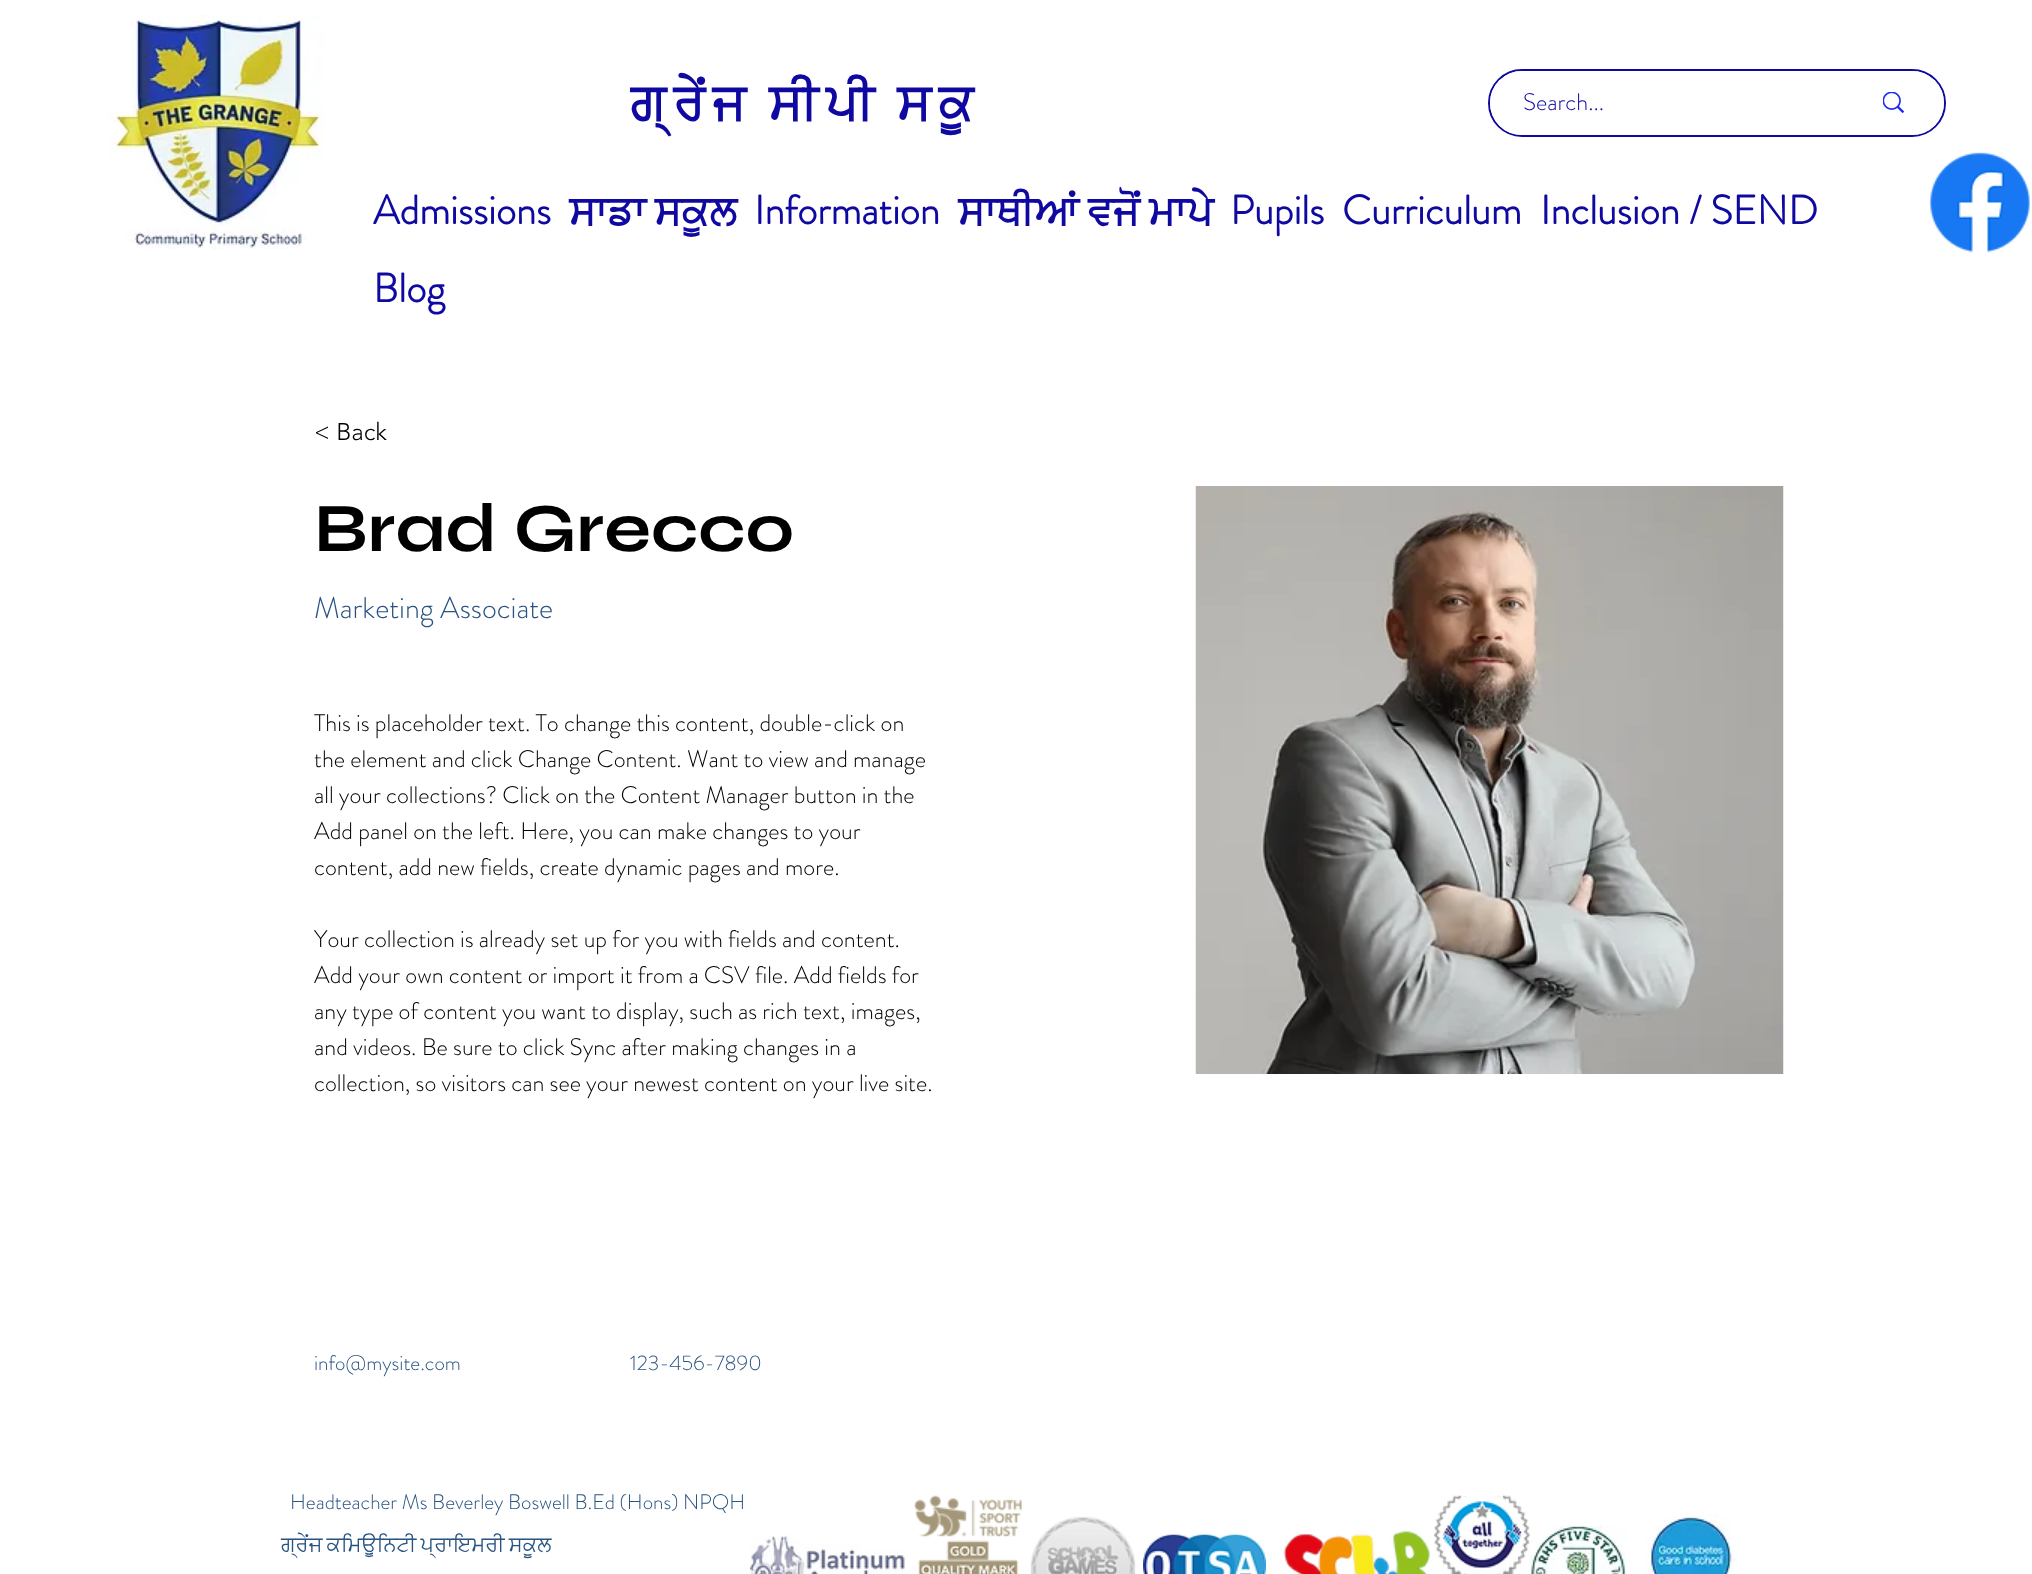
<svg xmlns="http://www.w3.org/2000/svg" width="2032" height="1574">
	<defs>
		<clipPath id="clip1"><rect x="630" y="66" width="401" height="74" /></clipPath>
	</defs>
	<rect width="100%" height="100%" fill="#FFFFFF" />
	<image x="108" y="15" width="217" height="234" href="assets/img1.png" />
	<g clip-path="url(#clip1)">
		<text x="630" y="119" word-spacing="-5" font-family="FreeSans" font-size="51" font-weight="700" letter-spacing="7.6" fill="#0F09A1">ਗ੍ਰੇਂਜ ਸੀਪੀ ਸਕੂ</text>
	</g>
	<rect x="1489" y="70" width="456" height="66" rx="33" fill="none" stroke="#0F09A1" stroke-width="2" />
	<rect x="1490" y="71" width="454" height="64" rx="32" fill="#FFFFFF" />
	<text x="1523" y="110" font-family="'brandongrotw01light'" font-size="24" font-weight="300" fill="#0F09A1">Search...</text>
	<image x="1883" y="92" width="21" height="21" href="assets/img2.png" />
	<text x="373" y="224" font-family="'brandongrotw01light'" font-size="40.5" font-weight="700" fill="#0F09A1">Admissions</text>
	<text x="569" y="224" word-spacing="-1" font-family="FreeSans" font-size="40.5" font-weight="700" fill="#0F09A1">ਸਾਡਾ ਸਕੂਲ</text>
	<text x="754" y="224" font-family="'brandongrotw01light'" font-size="40.5" font-weight="700" fill="#0F09A1">Information</text>
	<text x="958" y="224" word-spacing="-1" font-family="FreeSans" font-size="40.5" font-weight="700" fill="#0F09A1">ਸਾਥੀਆਂ ਵਜੋਂ ਮਾਪੇ</text>
	<g font-family="'brandongrotw01light'" font-size="40.5" font-weight="700" fill="#0F09A1">
		<text x="1230" y="224">Pupils</text>
		<text x="1342" y="224">Curriculum</text>
		<text x="1540" y="224">Inclusion / SEND</text>
		<text x="373" y="302">Blog</text>
	</g>
	<image x="1929" y="152" width="101" height="101" href="assets/img3.png" />
	<text x="314" y="440" font-family="'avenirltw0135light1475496'" font-size="24" font-weight="300" fill="#000000">&lt; Back</text>
	<text x="314" y="551" font-family="Syne" font-size="69" font-weight="700" fill="#000000">Brad Grecco</text>
	<text x="314" y="618" font-family="'brandongrotw01light'" font-size="30" font-weight="300" fill="#295380">Marketing Associate</text>
	<g font-family="'brandongrotw01light'" font-size="24" font-weight="300" fill="#000000">
		<text x="314" y="731">This is placeholder text. To change this content, double-click on</text>
		<text x="314" y="767">the element and click Change Content. Want to view and manage</text>
		<text x="314" y="803">all your collections? Click on the Content Manager button in the</text>
		<text x="314" y="839">Add panel on the left. Here, you can make changes to your</text>
		<text x="314" y="875">content, add new fields, create dynamic pages and more.</text>
		<text x="314" y="947">Your collection is already set up for you with fields and content.</text>
		<text x="314" y="983">Add your own content or import it from a CSV file. Add fields for</text>
		<text x="314" y="1019">any type of content you want to display, such as rich text, images,</text>
		<text x="314" y="1055">and videos. Be sure to click Sync after making changes in a</text>
		<text x="314" y="1091">collection, so visitors can see your newest content on your live site.</text>
	</g>
	<g font-family="'brandongrotw01light'" font-size="21" font-weight="300" fill="#295380">
		<text x="314" y="1370">info@mysite.com</text>
		<text x="630" y="1370">123-456-7890</text>
	</g>
	<image x="1195" y="486" width="589" height="588" href="assets/img4.png" />
	<text x="290" y="1509" font-family="'brandongrotw01light'" font-size="21" font-weight="300" fill="#295380">Headteacher Ms Beverley Boswell B.Ed (Hons) NPQH</text>
	<image x="914" y="1495" width="108" height="79" href="assets/img5.png" />
	<image x="1030" y="1516" width="106" height="58" href="assets/img6.png" />
	<image x="1283" y="1531" width="147" height="43" href="assets/img7.png" />
	<image x="1434" y="1495" width="96" height="79" href="assets/img8.png" />
	<image x="1530" y="1525" width="96" height="49" href="assets/img9.png" />
	<image x="1646" y="1514" width="91" height="60" href="assets/img10.png" />
	<text x="281" y="1551" word-spacing="-1" font-family="FreeSans" font-size="21" fill="#295380">ਗ੍ਰੇਂਜ ਕਮਿਊਨਿਟੀ ਪ੍ਰਾਇਮਰੀ ਸਕੂਲ</text>
	<image x="750" y="1535" width="155" height="39" href="assets/img11.png" />
	<image x="1143" y="1534" width="123" height="40" href="assets/img12.png" />
</svg>
